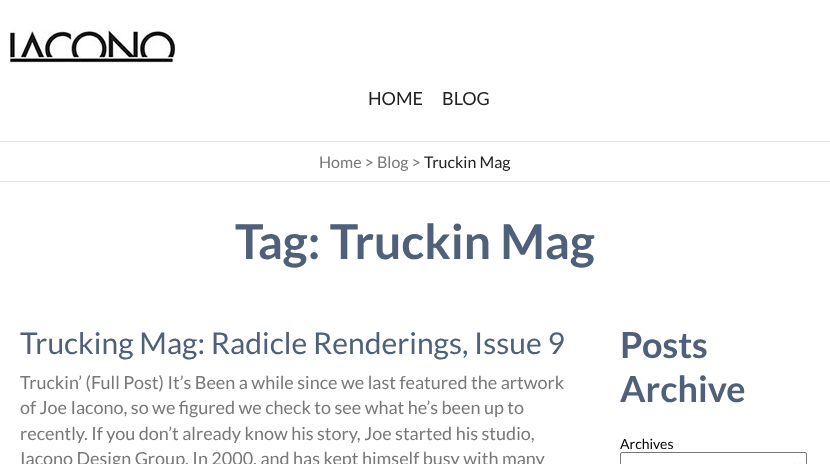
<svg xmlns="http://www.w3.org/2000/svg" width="830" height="464">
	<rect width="100%" height="100%" fill="#FFFFFF" />
	<image x="10" y="30" width="165" height="33" href="assets/img1.png" />
	<g font-family="Lato" font-size="18" fill="#212121">
		<text x="368" y="105">HOME</text>
		<text x="442" y="105">BLOG</text>
	</g>
	<rect x="0" y="141" width="830" height="1" fill="#E1E1E1" />
	<rect x="0" y="181" width="830" height="1" fill="#E1E1E1" />
	<text x="319" y="168" font-family="Lato" font-size="16" fill="#787878">Home &gt; Blog &gt;</text>
	<text x="424" y="168" font-family="Lato" font-size="16" fill="#212121">Truckin Mag</text>
	<text x="235" y="259" font-family="Lato" font-size="48" font-weight="700" fill="#4F607A">Tag: Truckin Mag</text>
	<text x="20" y="354" font-family="Lato" font-size="30" fill="#4F607A">Trucking Mag: Radicle Renderings, Issue 9</text>
	<g font-family="Lato" font-size="18" fill="#787878">
		<text x="20" y="389">Truckin’ (Full Post) It’s Been a while since we last featured the artwork</text>
		<text x="20" y="414">of Joe Iacono, so we figured we check to see what he’s been up to</text>
		<text x="20" y="440">recently. If you don’t already know his story, Joe started his studio,</text>
		<text x="20" y="465">Iacono Design Group, In 2000, and has kept himself busy with many</text>
	</g>
	<g font-family="Lato" font-size="36" font-weight="700" fill="#4F607A">
		<text x="620" y="358">Posts</text>
		<text x="620" y="402">Archive</text>
	</g>
	<text x="620" y="449" font-family="Lato" font-size="14" fill="#000000">Archives</text>
	<rect x="620.5" y="452.5" width="186" height="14" rx="1.5" fill="none" stroke="#767676" />
	<path d="M793.5 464.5L797.5 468.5L801.5 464.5" fill="none" stroke="#000000" stroke-width="2" />
</svg>
